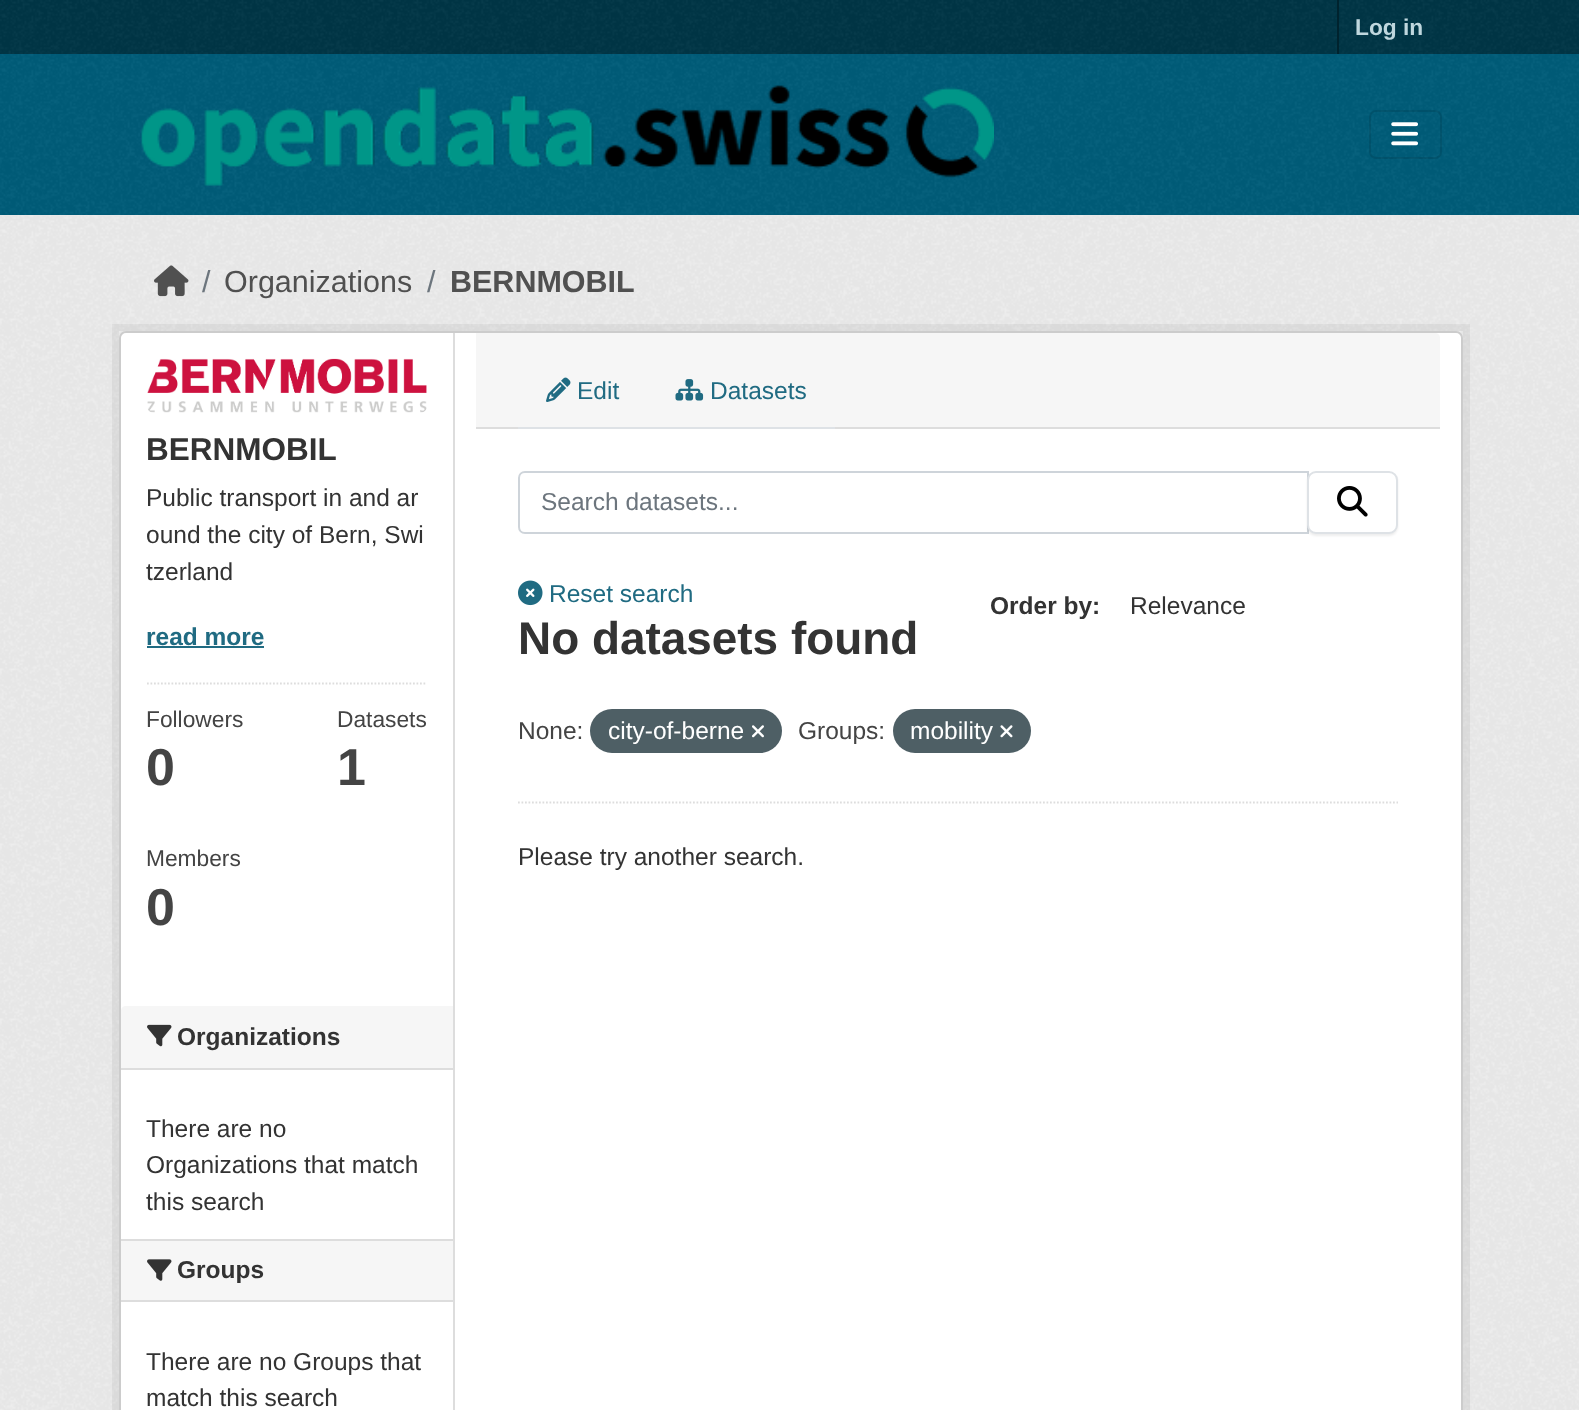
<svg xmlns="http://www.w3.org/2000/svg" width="1579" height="1410">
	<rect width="100%" height="100%" fill="#003647" />
	<image x="0" y="0" width="1579" height="54" href="assets/img1.png" />
	<rect x="1337" y="0" width="2" height="54" fill="#00232E" />
	<text x="1355" y="35" font-family="Liberation Sans" font-size="22.75" font-weight="700" fill="#BFD7DE">Log in</text>
	<rect x="0" y="54" width="1579" height="161" fill="#005D7A" />
	<image x="0" y="54" width="1579" height="161" href="assets/img2.png" />
	<image x="141" y="85" width="853" height="101" href="assets/img3.png" />
	<rect x="1370" y="111" width="71" height="47" rx="6" fill="none" stroke="#000000" stroke-opacity="0.1" stroke-width="2" />
	<image x="1391" y="122" width="27" height="24" href="assets/img4.png" />
	<rect x="0" y="215" width="1579" height="1195" fill="#EEEEEE" />
	<image x="0" y="215" width="1579" height="1195" href="assets/img5.png" />
	<image x="154" y="265" width="35" height="32" href="assets/img6.png" />
	<text x="202" y="292" font-family="Liberation Sans" font-size="30.5" fill="#6C757D">/</text>
	<text x="224" y="292" font-family="Liberation Sans" font-size="30.5" fill="#505050">Organizations</text>
	<text x="427" y="292" font-family="Liberation Sans" font-size="30.5" fill="#6C757D">/</text>
	<text x="450" y="292" font-family="Liberation Sans" font-size="30.5" font-weight="700" fill="#505050">BERNMOBIL</text>
	<rect x="115.5" y="327.5" width="1351" height="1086" fill="none" stroke="#000000" stroke-opacity="0.05" stroke-width="7" />
	<rect x="120" y="332" width="1342" height="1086" rx="6" fill="#FFFFFF" stroke="#CCCCCC" stroke-width="2" />
	<image x="147" y="358" width="280" height="55" href="assets/img7.png" />
	<text x="146" y="460" font-family="Liberation Sans" font-size="31.5" font-weight="700" fill="#333333">BERNMOBIL</text>
	<g font-family="Liberation Sans" font-size="24.5" fill="#333333">
		<text x="146" y="506">Public transport in and ar</text>
		<text x="146" y="543">ound the city of Bern, Swi</text>
		<text x="146" y="580">tzerland</text>
	</g>
	<text x="146" y="645" font-family="Liberation Sans" font-size="24.5" font-weight="700" fill="#206B82">read more</text>
	<rect x="147" y="646" width="117" height="2" fill="#206B82" />
	<path d="M147 683.5H427" fill="none" stroke="#DDDDDD" stroke-width="1.8" stroke-dasharray="1.75 1.75" />
	<text x="146" y="727" font-family="Liberation Sans" font-size="22.75" fill="#444444">Followers</text>
	<text x="146" y="785" font-family="Liberation Sans" font-size="52" font-weight="700" fill="#444444">0</text>
	<text x="337" y="727" font-family="Liberation Sans" font-size="22.75" fill="#444444">Datasets</text>
	<text x="337" y="785" font-family="Liberation Sans" font-size="52" font-weight="700" fill="#444444">1</text>
	<text x="146" y="866" font-family="Liberation Sans" font-size="22.75" fill="#444444">Members</text>
	<text x="146" y="925" font-family="Liberation Sans" font-size="52" font-weight="700" fill="#444444">0</text>
	<path d="M126 1006H453V1069H121V1011C121 1008 123 1006 126 1006Z" fill="#F6F6F6" />
	<rect x="121" y="1068" width="332" height="2" fill="#DDDDDD" />
	<image x="147" y="1024" width="25" height="23" href="assets/img8.png" />
	<text x="177" y="1045" font-family="Liberation Sans" font-size="24.5" font-weight="700" fill="#333333">Organizations</text>
	<g font-family="Liberation Sans" font-size="24.5" fill="#333333">
		<text x="146" y="1137">There are no</text>
		<text x="146" y="1173">Organizations that match</text>
		<text x="146" y="1210">this search</text>
	</g>
	<rect x="121" y="1241" width="332" height="59" fill="#F6F6F6" />
	<rect x="121" y="1239" width="332" height="2" fill="#DDDDDD" />
	<rect x="121" y="1300" width="332" height="2" fill="#DDDDDD" />
	<image x="147" y="1259" width="25" height="22" href="assets/img9.png" />
	<text x="177" y="1278" font-family="Liberation Sans" font-size="24.5" font-weight="700" fill="#333333">Groups</text>
	<g font-family="Liberation Sans" font-size="24.5" fill="#333333">
		<text x="146" y="1370">There are no Groups that</text>
		<text x="146" y="1406">match this search</text>
	</g>
	<rect x="453" y="333" width="2" height="1077" fill="#DDDDDD" />
	<path d="M476 333H1435C1438 333 1440 335 1440 338V429H476Z" fill="#F6F6F6" />
	<rect x="476" y="427" width="964" height="2" fill="#DDDDDD" />
	<rect x="518" y="427" width="317" height="2" fill="#DEE2E6" />
	<image x="546" y="377" width="25" height="25" href="assets/img10.png" />
	<text x="577" y="399" font-family="Liberation Sans" font-size="24.5" fill="#206B82">Edit</text>
	<image x="675" y="379" width="29" height="22" href="assets/img11.png" />
	<text x="710" y="399" font-family="Liberation Sans" font-size="24.5" fill="#206B82">Datasets</text>
	<path d="M518 802.5H1398" fill="none" stroke="#DDDDDD" stroke-width="1.8" stroke-dasharray="1.75 1.75" />
	<path d="M525 472H1308V533H525C521.5 533 519 530.5 519 527V478C519 474.5 521.5 472 525 472Z" fill="none" stroke="#CED4DA" stroke-width="2" />
	<text x="541" y="510" font-family="Liberation Sans" font-size="24.5" fill="#6C757D">Search datasets...</text>
	<rect x="1307" y="473" width="91" height="63" rx="9" fill="#000000" fill-opacity="0.07" filter="blur(1px)" />
	<rect x="1308" y="472" width="89" height="61" rx="8" fill="#FFFFFF" stroke="#DEE2E6" stroke-width="2" />
	<image x="1337" y="486" width="31" height="31" href="assets/img12.png" />
	<image x="518" y="580" width="25" height="26" href="assets/img13.png" />
	<text x="549" y="602" font-family="Liberation Sans" font-size="24.5" fill="#206B82">Reset search</text>
	<text x="990" y="614" font-family="Liberation Sans" font-size="24.5" font-weight="700" fill="#333333">Order by:</text>
	<text x="1130" y="614" font-family="Liberation Sans" font-size="24.5" fill="#333333">Relevance</text>
	<text x="518" y="654" font-family="Liberation Sans" font-size="45.9" font-weight="700" fill="#333333">No datasets found</text>
	<text x="518" y="739" font-family="Liberation Sans" font-size="24.5" fill="#444444">None:</text>
	<rect x="590" y="709" width="192" height="44" rx="22" fill="#4E5F65" />
	<text x="608" y="739" font-family="Liberation Sans" font-size="24.5" fill="#FFFFFF">city-of-berne</text>
	<image x="752" y="725" width="12" height="13" href="assets/img14.png" />
	<text x="798" y="739" font-family="Liberation Sans" font-size="24.5" fill="#444444">Groups:</text>
	<rect x="893" y="709" width="138" height="44" rx="22" fill="#4E5F65" />
	<text x="910" y="739" font-family="Liberation Sans" font-size="24.5" fill="#FFFFFF">mobility</text>
	<image x="1000" y="725" width="13" height="13" href="assets/img15.png" />
	<text x="518" y="865" font-family="Liberation Sans" font-size="24.5" fill="#333333">Please try another search.</text>
</svg>
